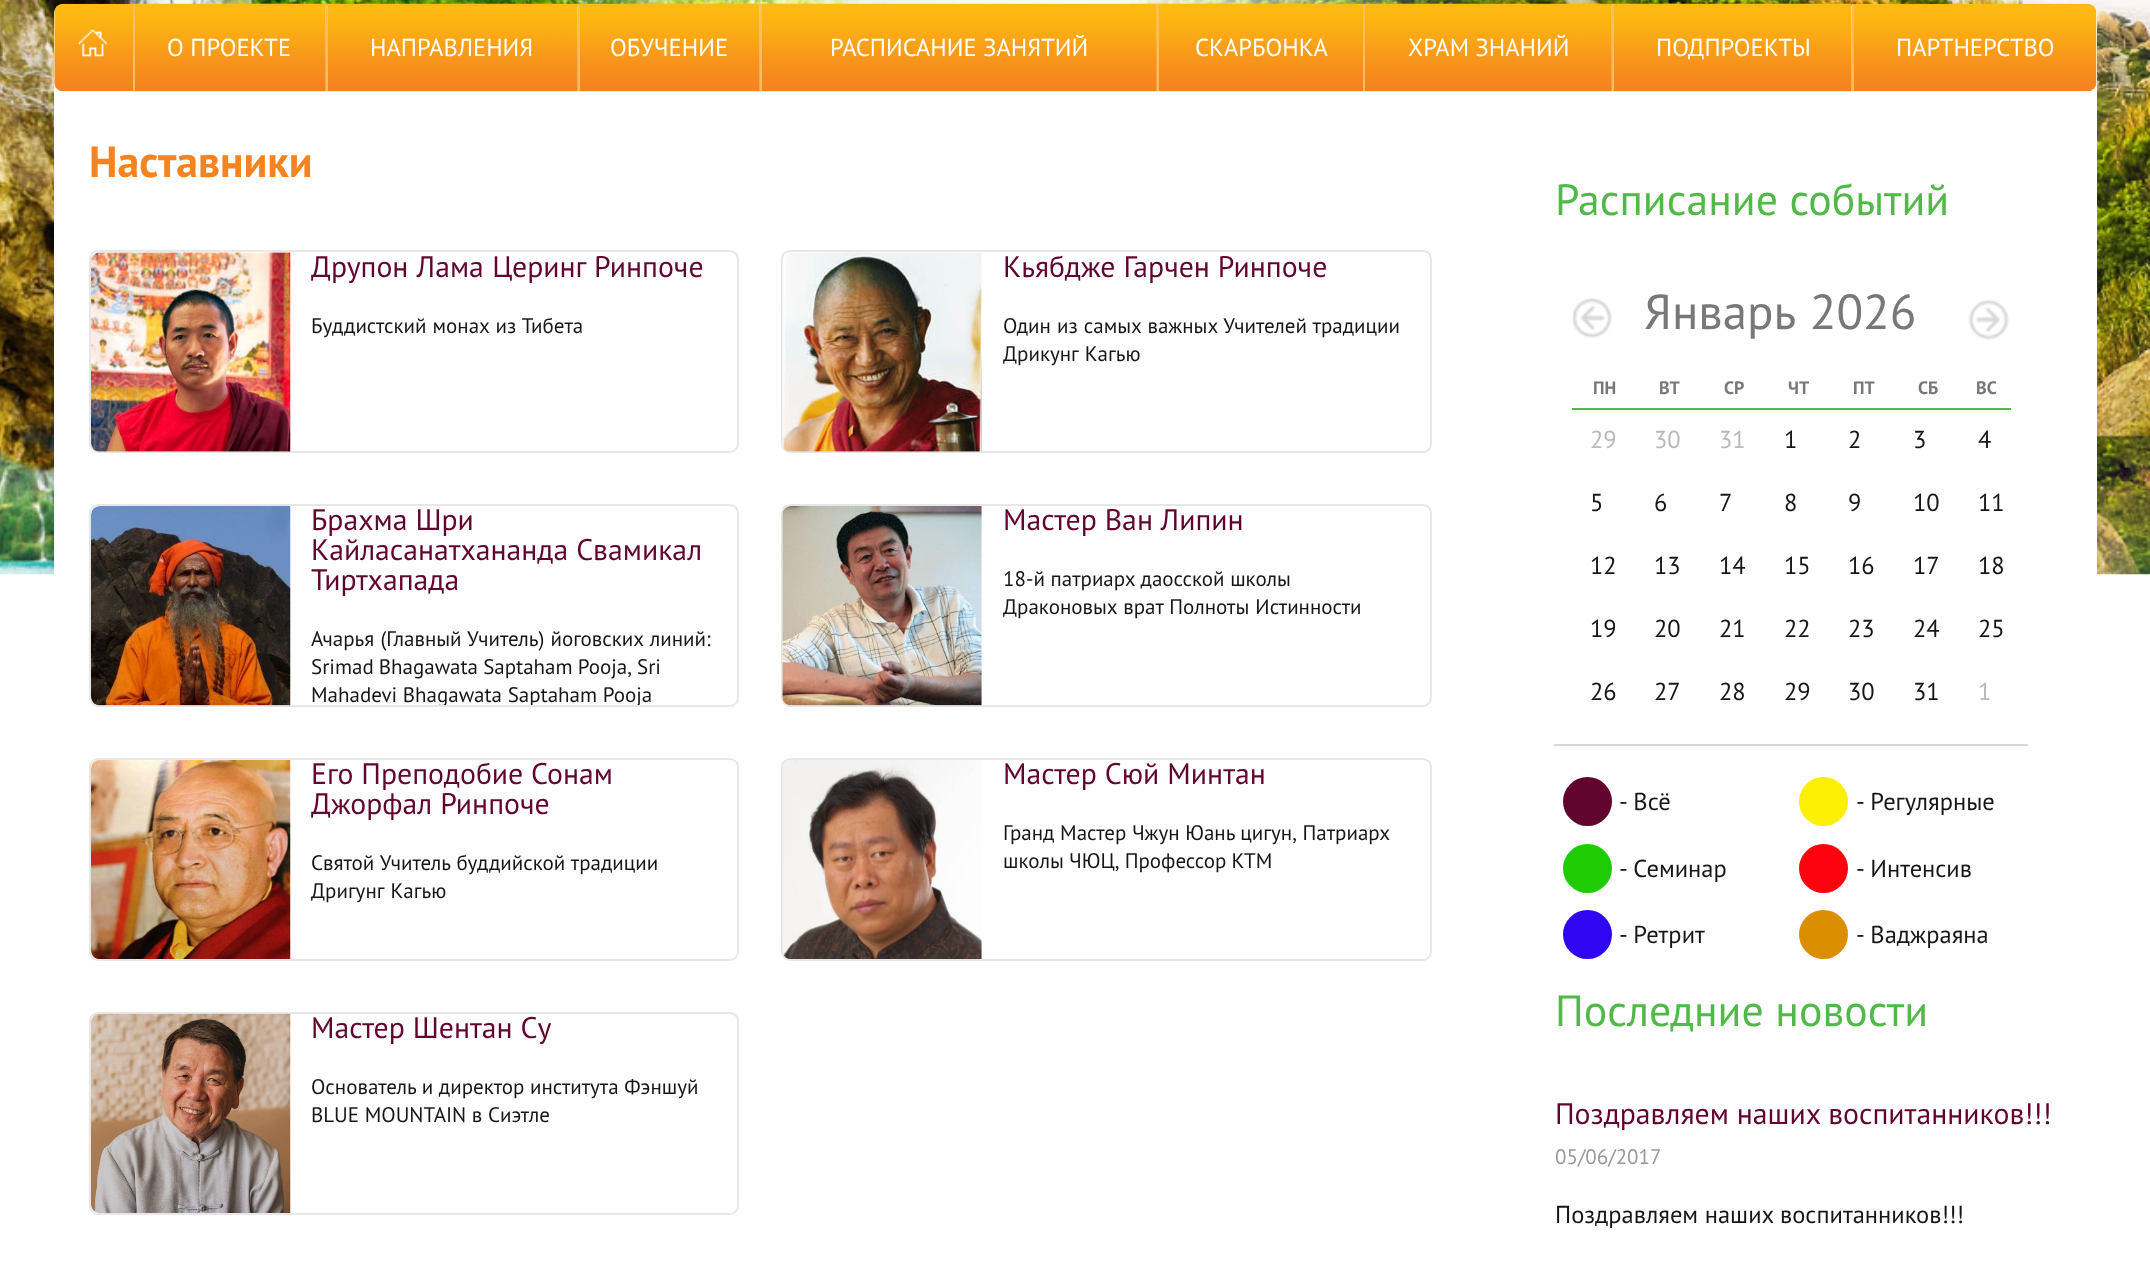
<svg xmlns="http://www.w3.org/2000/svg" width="2150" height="1285">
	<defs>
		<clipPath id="clip1"><rect x="91" y="506" width="646" height="199" rx="7" /></clipPath>
	</defs>
	<rect width="100%" height="100%" fill="#FFFFFF" />
	<image x="0" y="0" width="2150" height="575" href="assets/img1.png" />
	<path d="M63 5H2088C2093 5 2097 9 2097 14V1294H54V14C54 9 58 5 63 5Z" fill="#FFFFFF" />
	<image x="54" y="3" width="79" height="89" href="assets/img2.png" />
	<image x="78" y="29" width="29" height="28" href="assets/img3.png" />
	<image x="133" y="3" width="193" height="89" href="assets/img4.png" />
	<rect x="133" y="4" width="2" height="87" fill="#FCBD60" />
	<text x="167" y="56" font-family="PT Sans" font-size="24.5" fill="#FFFFFF">О ПРОЕКТЕ</text>
	<image x="325" y="3" width="253" height="89" href="assets/img5.png" />
	<rect x="326" y="4" width="2" height="87" fill="#FCBD60" />
	<text x="370" y="56" font-family="PT Sans" font-size="24.5" fill="#FFFFFF">НАПРАВЛЕНИЯ</text>
	<image x="577" y="3" width="183" height="89" href="assets/img6.png" />
	<rect x="578" y="4" width="2" height="87" fill="#FCBD60" />
	<text x="610" y="56" font-family="PT Sans" font-size="24.5" fill="#FFFFFF">ОБУЧЕНИЕ</text>
	<image x="759" y="3" width="398" height="89" href="assets/img7.png" />
	<rect x="760" y="4" width="2" height="87" fill="#FCBD60" />
	<text x="830" y="56" font-family="PT Sans" font-size="24.5" fill="#FFFFFF">РАСПИСАНИЕ ЗАНЯТИЙ</text>
	<image x="1156" y="3" width="208" height="89" href="assets/img8.png" />
	<rect x="1157" y="4" width="2" height="87" fill="#FCBD60" />
	<text x="1195" y="56" font-family="PT Sans" font-size="24.5" fill="#FFFFFF">СКАРБОНКА</text>
	<image x="1363" y="3" width="249" height="89" href="assets/img9.png" />
	<rect x="1363" y="4" width="2" height="87" fill="#FCBD60" />
	<text x="1408" y="56" font-family="PT Sans" font-size="24.5" fill="#FFFFFF">ХРАМ ЗНАНИЙ</text>
	<image x="1611" y="3" width="241" height="89" href="assets/img10.png" />
	<rect x="1612" y="4" width="2" height="87" fill="#FCBD60" />
	<text x="1656" y="56" font-family="PT Sans" font-size="24.5" fill="#FFFFFF">ПОДПРОЕКТЫ</text>
	<image x="1851" y="3" width="246" height="89" href="assets/img11.png" />
	<rect x="1852" y="4" width="2" height="87" fill="#FCBD60" />
	<text x="1896" y="56" font-family="PT Sans" font-size="24.5" fill="#FFFFFF">ПАРТНЕРСТВО</text>
	<text x="89" y="177" font-family="PT Sans" font-size="43.75" font-weight="700" fill="#F58320">Наставники</text>
	<rect x="90" y="251" width="648" height="201" rx="8" fill="none" stroke="#E7E7E7" stroke-width="2" />
	<image x="91" y="252" width="200" height="200" href="assets/img12.png" />
	<text x="311" y="277" word-spacing="0.5" font-family="PT Sans" font-size="29.75" fill="#61042E">Друпон Лама Церинг Ринпоче</text>
	<text x="311" y="333" word-spacing="0.5" font-family="PT Sans" font-size="21" fill="#161616">Буддистский монах из Тибета</text>
	<rect x="782" y="251" width="649" height="201" rx="8" fill="none" stroke="#E7E7E7" stroke-width="2" />
	<image x="782" y="252" width="200" height="200" href="assets/img13.png" />
	<text x="1003" y="277" font-family="PT Sans" font-size="29.75" fill="#61042E">Кьябдже Гарчен Ринпоче</text>
	<g font-family="PT Sans" font-size="21" fill="#161616">
		<text x="1003" y="333" word-spacing="0.5">Один из самых важных Учителей традиции</text>
		<text x="1003" y="361" word-spacing="1">Дрикунг Кагью</text>
	</g>
	<rect x="90" y="505" width="648" height="201" rx="8" fill="none" stroke="#E7E7E7" stroke-width="2" />
	<image x="91" y="506" width="200" height="200" href="assets/img14.png" />
	<g font-family="PT Sans" font-size="29.75" fill="#61042E">
		<text x="311" y="530">Брахма Шри</text>
		<text x="311" y="560">Кайласанатхананда Свамикал</text>
		<text x="311" y="590">Тиртхапада</text>
	</g>
	<g font-family="PT Sans" font-size="21" fill="#161616">
		<text x="311" y="646" word-spacing="0.5">Ачарья (Главный Учитель) йоговских линий:</text>
		<text x="311" y="674" word-spacing="-0.5">Srimad Bhagawata Saptaham Pooja, Sri</text>
	</g>
	<g clip-path="url(#clip1)">
		<text x="311" y="702" font-family="PT Sans" font-size="21" fill="#161616">Mahadevi Bhagawata Saptaham Pooja</text>
	</g>
	<rect x="782" y="505" width="649" height="201" rx="8" fill="none" stroke="#E7E7E7" stroke-width="2" />
	<image x="782" y="506" width="200" height="200" href="assets/img15.png" />
	<text x="1003" y="530" font-family="PT Sans" font-size="29.75" fill="#61042E">Мастер Ван Липин</text>
	<g font-family="PT Sans" font-size="21" fill="#161616">
		<text x="1003" y="586">18-й патриарх даосской школы</text>
		<text x="1003" y="614" word-spacing="0.5">Драконовых врат Полноты Истинности</text>
	</g>
	<rect x="90" y="759" width="648" height="201" rx="8" fill="none" stroke="#E7E7E7" stroke-width="2" />
	<image x="91" y="760" width="200" height="199" href="assets/img16.png" />
	<g font-family="PT Sans" font-size="29.75" fill="#61042E">
		<text x="311" y="784">Его Преподобие Сонам</text>
		<text x="311" y="814">Джорфал Ринпоче</text>
	</g>
	<g font-family="PT Sans" font-size="21" fill="#161616">
		<text x="311" y="870" word-spacing="0.5">Святой Учитель буддийской традиции</text>
		<text x="311" y="898" word-spacing="1">Дригунг Кагью</text>
	</g>
	<rect x="782" y="759" width="649" height="201" rx="8" fill="none" stroke="#E7E7E7" stroke-width="2" />
	<image x="782" y="760" width="200" height="199" href="assets/img17.png" />
	<text x="1003" y="784" font-family="PT Sans" font-size="29.75" fill="#61042E">Мастер Сюй Минтан</text>
	<g font-family="PT Sans" font-size="21" fill="#161616">
		<text x="1003" y="840">Гранд Мастер Чжун Юань цигун, Патриарх</text>
		<text x="1003" y="868" word-spacing="-0.5">школы ЧЮЦ, Профессор КТМ</text>
	</g>
	<rect x="90" y="1013" width="648" height="201" rx="8" fill="none" stroke="#E7E7E7" stroke-width="2" />
	<image x="91" y="1013" width="200" height="200" href="assets/img18.png" />
	<text x="311" y="1038" font-family="PT Sans" font-size="29.75" fill="#61042E">Мастер Шентан Су</text>
	<g font-family="PT Sans" font-size="21" fill="#161616">
		<text x="311" y="1094">Основатель и директор института Фэншуй</text>
		<text x="311" y="1122">BLUE MOUNTAIN в Сиэтле</text>
	</g>
	<text x="1555" y="215" font-family="PT Sans" font-size="43.75" fill="#50B948">Расписание событий</text>
	<text x="1644" y="329" word-spacing="2" font-family="PT Sans" font-size="49" fill="#787878">Январь 2026</text>
	<image x="1573" y="297" width="39" height="41" href="assets/img19.png" />
	<image x="1968" y="299" width="41" height="41" href="assets/img20.png" />
	<rect x="1572" y="408" width="439" height="2" fill="#50B948" />
	<g font-family="PT Sans" font-size="18" font-weight="700" fill="#787878">
		<text x="1593" y="394">ПН</text>
		<text x="1659" y="394">ВТ</text>
		<text x="1724" y="394">СР</text>
		<text x="1788" y="394">ЧТ</text>
		<text x="1853" y="394">ПТ</text>
		<text x="1918" y="394">СБ</text>
		<text x="1976" y="394">ВС</text>
	</g>
	<g font-family="PT Sans" font-size="24.5" fill="#B9B9B9">
		<text x="1590" y="448">29</text>
		<text x="1654" y="448">30</text>
		<text x="1719" y="448">31</text>
	</g>
	<g font-family="PT Sans" font-size="24.5" fill="#161616">
		<text x="1784" y="448">1</text>
		<text x="1848" y="448">2</text>
		<text x="1913" y="448">3</text>
		<text x="1978" y="448">4</text>
		<text x="1590" y="511">5</text>
		<text x="1654" y="511">6</text>
		<text x="1719" y="511">7</text>
		<text x="1784" y="511">8</text>
		<text x="1848" y="511">9</text>
		<text x="1913" y="511">10</text>
		<text x="1978" y="511">11</text>
		<text x="1590" y="574">12</text>
		<text x="1654" y="574">13</text>
		<text x="1719" y="574">14</text>
		<text x="1784" y="574">15</text>
		<text x="1848" y="574">16</text>
		<text x="1913" y="574">17</text>
		<text x="1978" y="574">18</text>
		<text x="1590" y="637">19</text>
		<text x="1654" y="637">20</text>
		<text x="1719" y="637">21</text>
		<text x="1784" y="637">22</text>
		<text x="1848" y="637">23</text>
		<text x="1913" y="637">24</text>
		<text x="1978" y="637">25</text>
		<text x="1590" y="700">26</text>
		<text x="1654" y="700">27</text>
		<text x="1719" y="700">28</text>
		<text x="1784" y="700">29</text>
		<text x="1848" y="700">30</text>
		<text x="1913" y="700">31</text>
	</g>
	<text x="1978" y="700" font-family="PT Sans" font-size="24.5" fill="#B9B9B9">1</text>
	<rect x="1554" y="744" width="474" height="2" fill="#D8D8D8" />
	<circle cx="1587.5" cy="801.5" r="24.5" fill="#61042E" />
	<text x="1619" y="810" word-spacing="-1" font-family="PT Sans" font-size="24.5" fill="#161616">- Всё</text>
	<circle cx="1823.5" cy="801.5" r="24.5" fill="#FCEF00" />
	<text x="1856" y="810" word-spacing="-1" font-family="PT Sans" font-size="24.5" fill="#161616">- Регулярные</text>
	<circle cx="1587.5" cy="868.5" r="24.5" fill="#1FCC04" />
	<text x="1619" y="877" word-spacing="-1" font-family="PT Sans" font-size="24.5" fill="#161616">- Семинар</text>
	<circle cx="1823.5" cy="868.5" r="24.5" fill="#FC030F" />
	<text x="1856" y="877" word-spacing="-1" font-family="PT Sans" font-size="24.5" fill="#161616">- Интенсив</text>
	<circle cx="1587.5" cy="934.5" r="24.5" fill="#3005F2" />
	<text x="1619" y="943" word-spacing="-1" font-family="PT Sans" font-size="24.5" fill="#161616">- Ретрит</text>
	<circle cx="1823.5" cy="934.5" r="24.5" fill="#DB8E00" />
	<text x="1856" y="943" word-spacing="-1" font-family="PT Sans" font-size="24.5" fill="#161616">- Ваджраяна</text>
	<text x="1555" y="1026" font-family="PT Sans" font-size="43.75" fill="#50B948">Последние новости</text>
	<text x="1555" y="1124" font-family="PT Sans" font-size="29.75" fill="#61042E">Поздравляем наших воспитанников!!!</text>
	<text x="1555" y="1164" font-family="PT Sans" font-size="21" fill="#989898">05/06/2017</text>
	<text x="1555" y="1223" font-family="PT Sans" font-size="24.5" fill="#161616">Поздравляем наших воспитанников!!!</text>
</svg>
